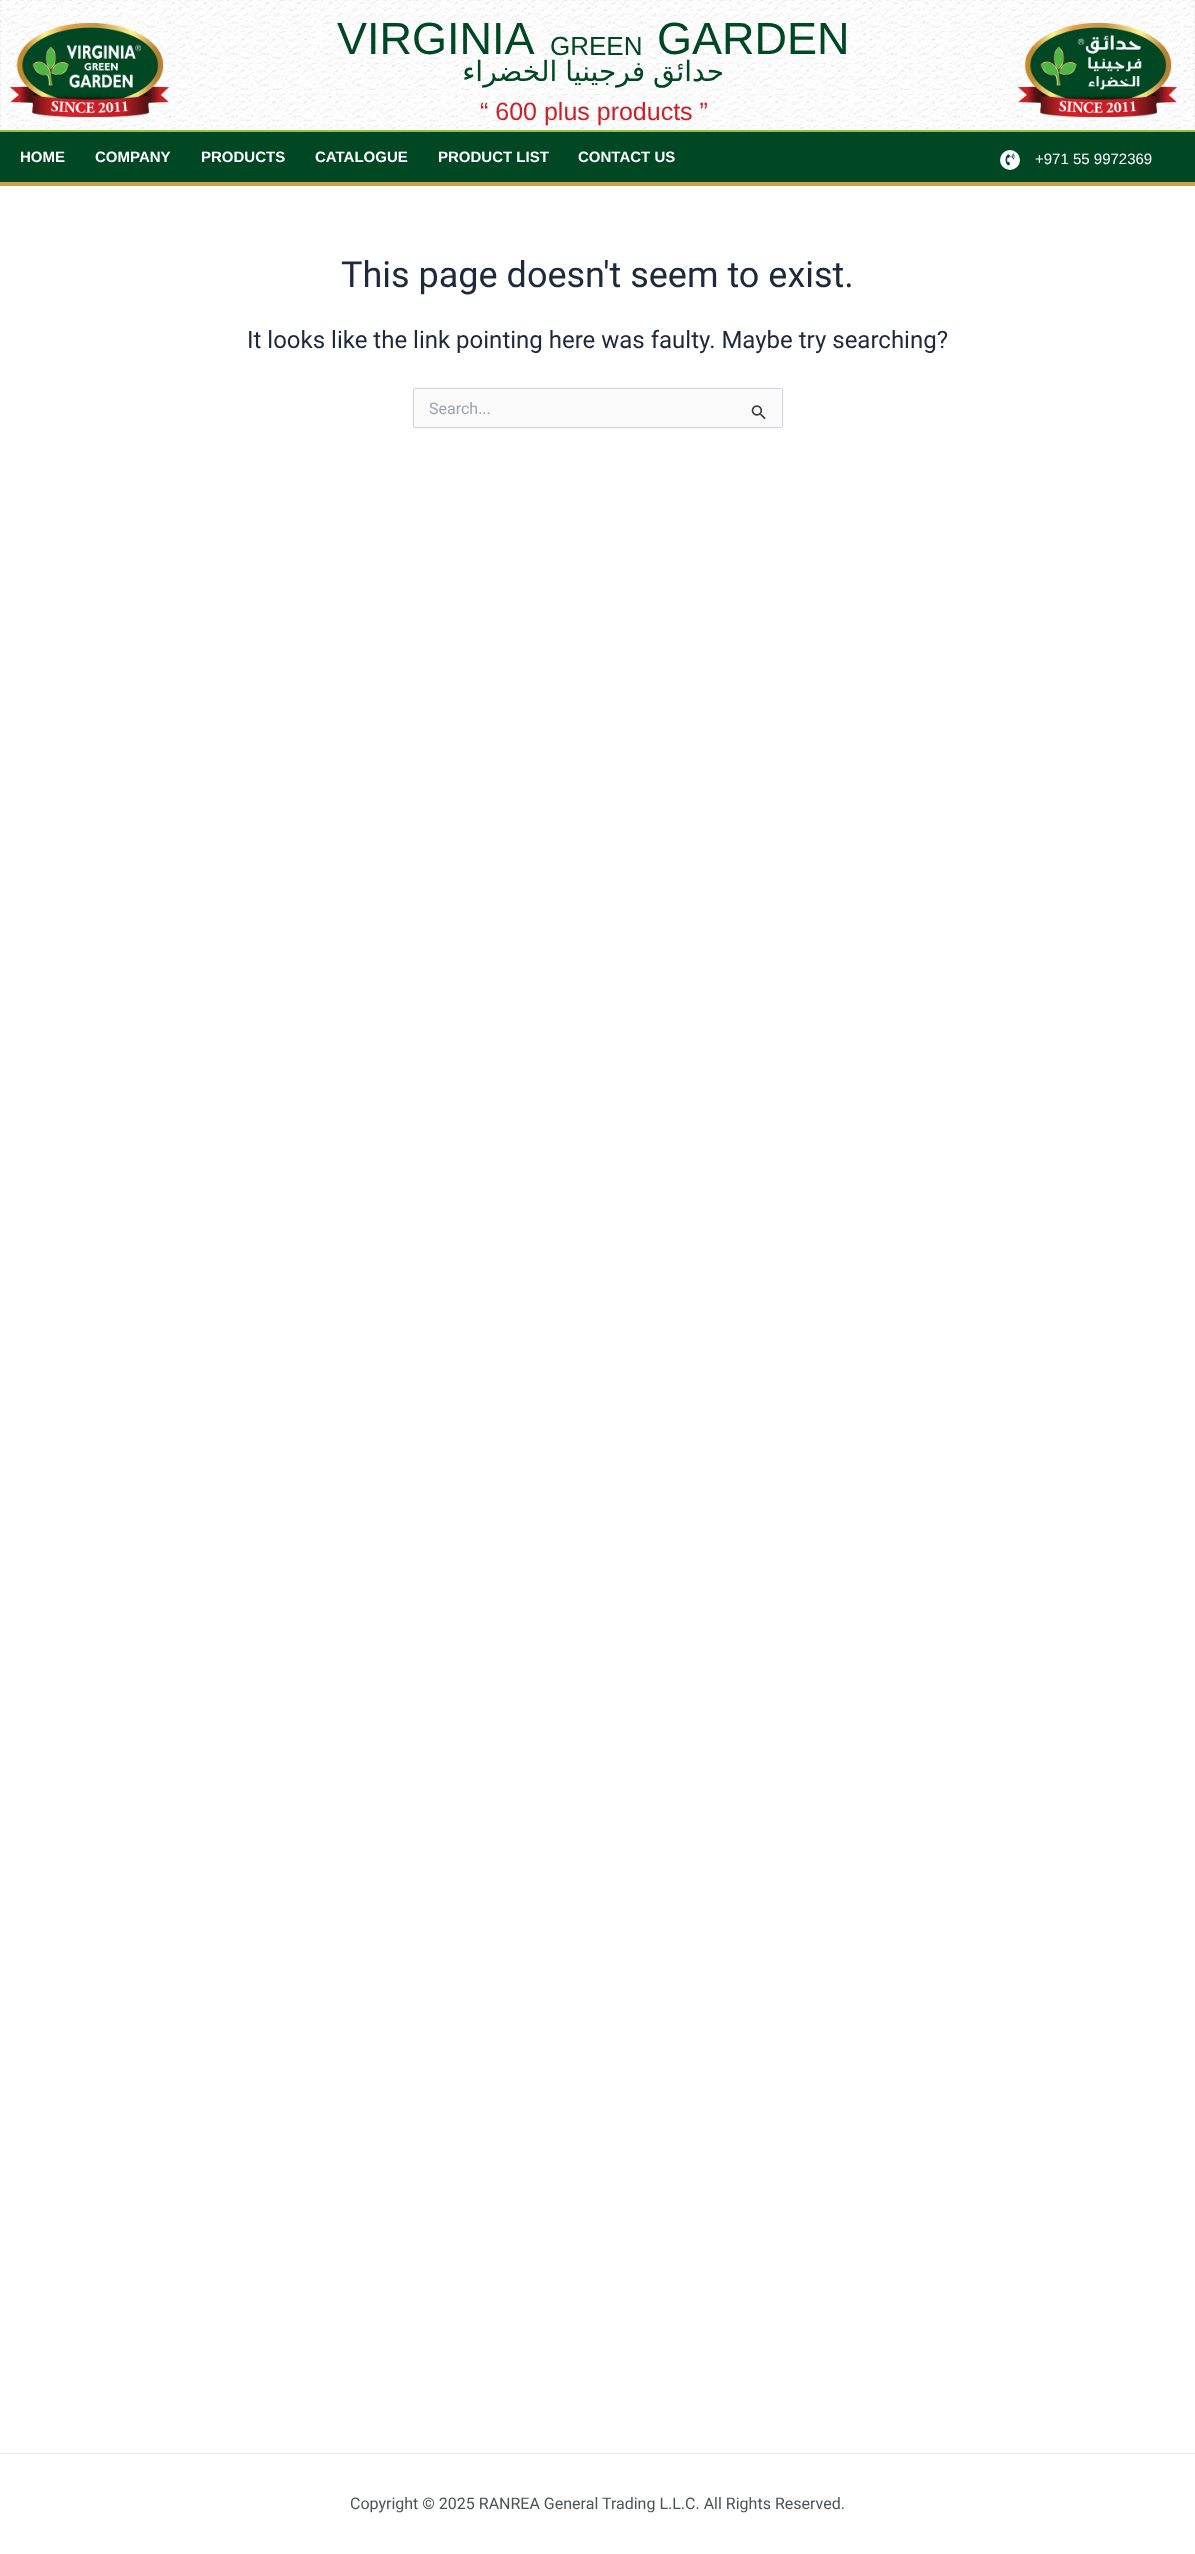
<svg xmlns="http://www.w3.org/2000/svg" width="1195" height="2554">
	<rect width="100%" height="100%" fill="#FFFFFF" />
	<image x="0" y="0" width="1195" height="130" href="assets/img1.png" />
	<image x="10" y="23" width="159" height="94" href="assets/img2.png" />
	<text x="337" y="54" font-family="Liberation Sans" font-size="45" fill="#004724">VIRGINIA</text>
	<text x="550" y="55" font-family="Liberation Sans" font-size="26" fill="#004724">GREEN</text>
	<text x="657" y="54" font-family="Liberation Sans" font-size="45" fill="#004724">GARDEN</text>
	<text x="724" y="81" word-spacing="-1" font-family="DejaVu Sans" font-size="28" direction="rtl" fill="#004724">حدائق فرجينيا الخضراء</text>
	<text x="480" y="120" font-family="Liberation Sans" font-size="25" fill="#CA2028">“ 600 plus products ”</text>
	<image x="1018" y="23" width="159" height="94" href="assets/img3.png" />
	<rect x="0" y="132" width="1195" height="50" fill="#004724" />
	<rect x="0" y="130" width="1195" height="2" fill="#91C33A" />
	<g font-family="Liberation Sans" font-size="15" font-weight="700" fill="#FFFFFF">
		<text x="20" y="162">HOME</text>
		<text x="95" y="162">COMPANY</text>
		<text x="201" y="162">PRODUCTS</text>
		<text x="315" y="162">CATALOGUE</text>
		<text x="438" y="162">PRODUCT LIST</text>
		<text x="578" y="162">CONTACT US</text>
	</g>
	<circle cx="1010" cy="160" r="10" fill="#FFFFFF" />
	<image x="1005" y="153" width="10" height="13" href="assets/img4.png" />
	<text x="1035" y="164" font-family="Liberation Sans" font-size="15" fill="#FFFFFF">+971 55 9972369</text>
	<rect x="0" y="182" width="1195" height="4" fill="#CAA243" />
	<text x="341" y="287" font-family="Roboto" font-size="36" fill="#1E293B">This page doesn't seem to exist.</text>
	<text x="247" y="348" font-family="Roboto" font-size="24" fill="#1E293B">It looks like the link pointing here was faulty. Maybe try searching?</text>
	<rect x="413" y="389" width="370" height="40" rx="2" fill="#000000" fill-opacity="0.05" filter="blur(1px)" />
	<rect x="413.5" y="388.5" width="369" height="39" rx="1.5" fill="#FAFAFA" stroke="#D1D5DB" />
	<text x="429" y="414" font-family="Roboto" font-size="16" fill="#9CA3AF">Search...</text>
	<image x="751" y="405" width="15" height="15" href="assets/img5.png" />
	<rect x="0" y="2453" width="1195" height="1" fill="#EAEAEA" />
	<text x="350" y="2509" font-family="Roboto" font-size="16" fill="#4D5257">Copyright © 2025 RANREA General Trading L.L.C. All Rights Reserved.</text>
</svg>
